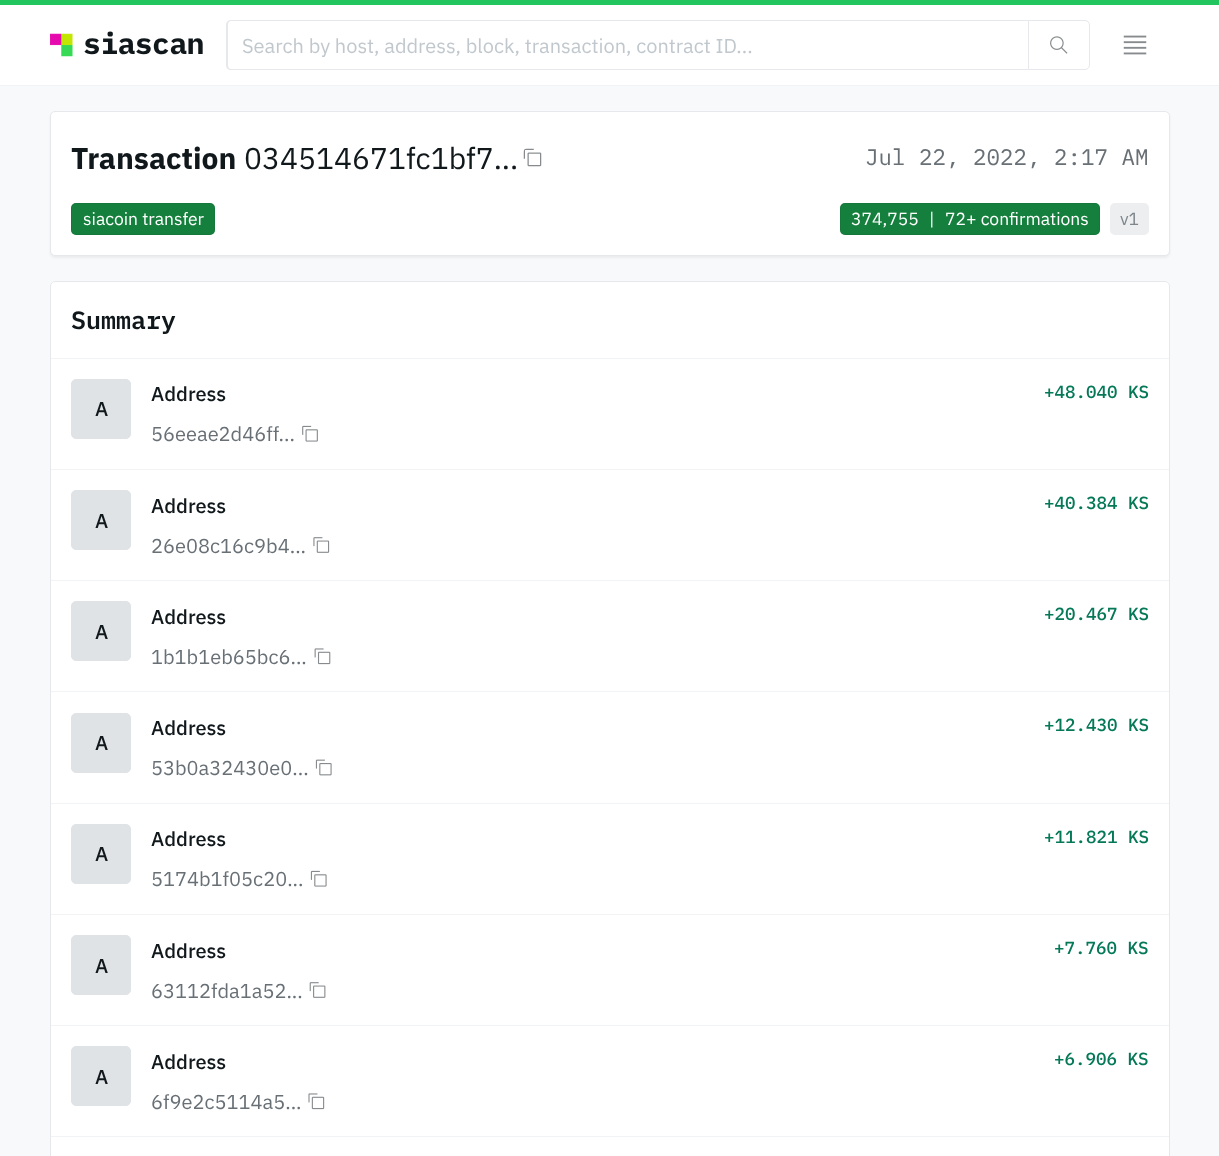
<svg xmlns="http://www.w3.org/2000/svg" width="1219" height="1156">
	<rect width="100%" height="100%" fill="#F8F9FA" />
	<rect x="0" y="5" width="1219" height="80" fill="#FFFFFF" />
	<rect x="0" y="0" width="1219" height="5" fill="#22C55E" />
	<rect x="0" y="85" width="1219" height="1" fill="#F1F3F5" />
	<image x="50" y="33" width="23" height="24" href="assets/img1.png" />
	<text x="83" y="54" font-family="IBM Plex Mono" font-size="30" font-weight="700" letter-spacing="-0.75" fill="#11181C">siascan</text>
	<path d="M231 20H1028V70H231C228 70 226 68 226 65V25C226 22 228 20 231 20ZM231 21H1028V69H231C229 69 228 67 228 65V25C228 23 229 21 231 21Z" fill="#E6E8EB" fill-rule="evenodd" />
	<text x="242" y="53" font-family="IBM Plex Sans" font-size="20" fill="#C1C8CD">Search by host, address, block, transaction, contract ID...</text>
	<path d="M1028.5 20.5H1085C1087.5 20.5 1089.5 22.5 1089.5 25V65C1089.5 67.5 1087.5 69.5 1085 69.5H1028.5Z" fill="none" stroke="#E6E8EB" />
	<image x="1050" y="36" width="18" height="18" href="assets/img2.png" />
	<image x="1123" y="35" width="24" height="20" href="assets/img3.png" />
	<rect x="50" y="113" width="1120" height="145" rx="5" fill="#000000" fill-opacity="0.05" filter="blur(1px)" />
	<rect x="50.5" y="111.5" width="1119" height="144" rx="4.5" fill="#FFFFFF" stroke="#E6E8EB" />
	<text x="71" y="169" font-family="IBM Plex Sans" font-size="30" font-weight="700" fill="#11181C">Transaction</text>
	<text x="244" y="169" font-family="IBM Plex Sans" font-size="30" fill="#11181C">034514671fc1bf7...</text>
	<image x="523" y="148" width="19" height="19" href="assets/img4.png" />
	<text x="865" y="165" font-family="IBM Plex Mono" font-size="22.5" fill="#687076">Jul 22, 2022, 2:17 AM</text>
	<rect x="71" y="203" width="144" height="32" rx="5" fill="#15803D" />
	<rect x="71.5" y="203.5" width="143" height="31" rx="4.5" fill="none" stroke="#166534" stroke-opacity="0.3" />
	<text x="83" y="225" font-family="IBM Plex Sans" font-size="17.5" fill="#FFFFFF">siacoin transfer</text>
	<rect x="840" y="203" width="260" height="32" rx="5" fill="#15803D" />
	<rect x="840.5" y="203.5" width="259" height="31" rx="4.5" fill="none" stroke="#166534" stroke-opacity="0.3" />
	<g font-family="IBM Plex Sans" font-size="17.5" fill="#FFFFFF">
		<text x="851" y="225">374,755</text>
		<text x="929" y="225">|</text>
		<text x="945" y="225">72+ confirmations</text>
	</g>
	<rect x="1110" y="203" width="39" height="32" rx="5" fill="#ECEEF0" />
	<text x="1120" y="225" font-family="IBM Plex Sans" font-size="17.5" fill="#7E868C">v1</text>
	<path d="M55 281H1165C1168 281 1170 283 1170 286V1156H50V286C50 283 52 281 55 281Z" fill="#FFFFFF" />
	<rect x="50.5" y="281.5" width="1119" height="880" rx="4.5" fill="none" stroke="#E6E8EB" />
	<rect x="51" y="358" width="1118" height="1" fill="#F1F3F5" />
	<text x="71" y="329" font-family="IBM Plex Mono" font-size="25" font-weight="600" fill="#11181C">Summary</text>
	<rect x="71.5" y="379.5" width="59" height="59" rx="4.5" fill="#DFE3E6" stroke="#DFE3E6" />
	<g font-family="IBM Plex Sans" font-size="20" font-weight="500" fill="#11181C">
		<text x="95" y="416">A</text>
		<text x="151" y="401">Address</text>
	</g>
	<text x="151" y="441" font-family="IBM Plex Sans" font-size="20" fill="#687076">56eeae2d46ff...</text>
	<image x="302" y="425" width="16" height="17" href="assets/img5.png" />
	<text x="1044" y="398" font-family="IBM Plex Mono" font-size="17.5" font-weight="500" fill="#047857">+48.040 KS</text>
	<rect x="51" y="469" width="1118" height="1" fill="#F1F3F5" />
	<rect x="71.5" y="490.5" width="59" height="59" rx="4.5" fill="#DFE3E6" stroke="#DFE3E6" />
	<g font-family="IBM Plex Sans" font-size="20" font-weight="500" fill="#11181C">
		<text x="95" y="528">A</text>
		<text x="151" y="513">Address</text>
	</g>
	<text x="151" y="553" font-family="IBM Plex Sans" font-size="20" fill="#687076">26e08c16c9b4...</text>
	<image x="313" y="537" width="17" height="16" href="assets/img6.png" />
	<text x="1044" y="509" font-family="IBM Plex Mono" font-size="17.5" font-weight="500" fill="#047857">+40.384 KS</text>
	<rect x="51" y="580" width="1118" height="1" fill="#F1F3F5" />
	<rect x="71.5" y="601.5" width="59" height="59" rx="4.5" fill="#DFE3E6" stroke="#DFE3E6" />
	<g font-family="IBM Plex Sans" font-size="20" font-weight="500" fill="#11181C">
		<text x="95" y="639">A</text>
		<text x="151" y="624">Address</text>
	</g>
	<text x="151" y="664" font-family="IBM Plex Sans" font-size="20" fill="#687076">1b1b1eb65bc6...</text>
	<image x="314" y="648" width="17" height="17" href="assets/img7.png" />
	<text x="1044" y="620" font-family="IBM Plex Mono" font-size="17.5" font-weight="500" fill="#047857">+20.467 KS</text>
	<rect x="51" y="691" width="1118" height="1" fill="#F1F3F5" />
	<rect x="71.5" y="713.5" width="59" height="59" rx="4.5" fill="#DFE3E6" stroke="#DFE3E6" />
	<g font-family="IBM Plex Sans" font-size="20" font-weight="500" fill="#11181C">
		<text x="95" y="750">A</text>
		<text x="151" y="735">Address</text>
	</g>
	<text x="151" y="775" font-family="IBM Plex Sans" font-size="20" fill="#687076">53b0a32430e0...</text>
	<image x="315" y="759" width="17" height="17" href="assets/img8.png" />
	<text x="1044" y="731" font-family="IBM Plex Mono" font-size="17.5" font-weight="500" fill="#047857">+12.430 KS</text>
	<rect x="51" y="803" width="1118" height="1" fill="#F1F3F5" />
	<rect x="71.5" y="824.5" width="59" height="59" rx="4.5" fill="#DFE3E6" stroke="#DFE3E6" />
	<g font-family="IBM Plex Sans" font-size="20" font-weight="500" fill="#11181C">
		<text x="95" y="861">A</text>
		<text x="151" y="846">Address</text>
	</g>
	<text x="151" y="886" font-family="IBM Plex Sans" font-size="20" fill="#687076">5174b1f05c20...</text>
	<image x="310" y="870" width="17" height="17" href="assets/img9.png" />
	<text x="1044" y="843" font-family="IBM Plex Mono" font-size="17.5" font-weight="500" fill="#047857">+11.821 KS</text>
	<rect x="51" y="914" width="1118" height="1" fill="#F1F3F5" />
	<rect x="71.5" y="935.5" width="59" height="59" rx="4.5" fill="#DFE3E6" stroke="#DFE3E6" />
	<g font-family="IBM Plex Sans" font-size="20" font-weight="500" fill="#11181C">
		<text x="95" y="973">A</text>
		<text x="151" y="958">Address</text>
	</g>
	<text x="151" y="998" font-family="IBM Plex Sans" font-size="20" fill="#687076">63112fda1a52...</text>
	<image x="309" y="982" width="17" height="16" href="assets/img10.png" />
	<text x="1054" y="954" font-family="IBM Plex Mono" font-size="17.5" font-weight="500" fill="#047857">+7.760 KS</text>
	<rect x="51" y="1025" width="1118" height="1" fill="#F1F3F5" />
	<rect x="71.5" y="1046.5" width="59" height="59" rx="4.5" fill="#DFE3E6" stroke="#DFE3E6" />
	<g font-family="IBM Plex Sans" font-size="20" font-weight="500" fill="#11181C">
		<text x="95" y="1084">A</text>
		<text x="151" y="1069">Address</text>
	</g>
	<text x="151" y="1109" font-family="IBM Plex Sans" font-size="20" fill="#687076">6f9e2c5114a5...</text>
	<image x="308" y="1093" width="17" height="17" href="assets/img11.png" />
	<text x="1054" y="1065" font-family="IBM Plex Mono" font-size="17.5" font-weight="500" fill="#047857">+6.906 KS</text>
	<rect x="51" y="1136" width="1118" height="1" fill="#F1F3F5" />
</svg>
